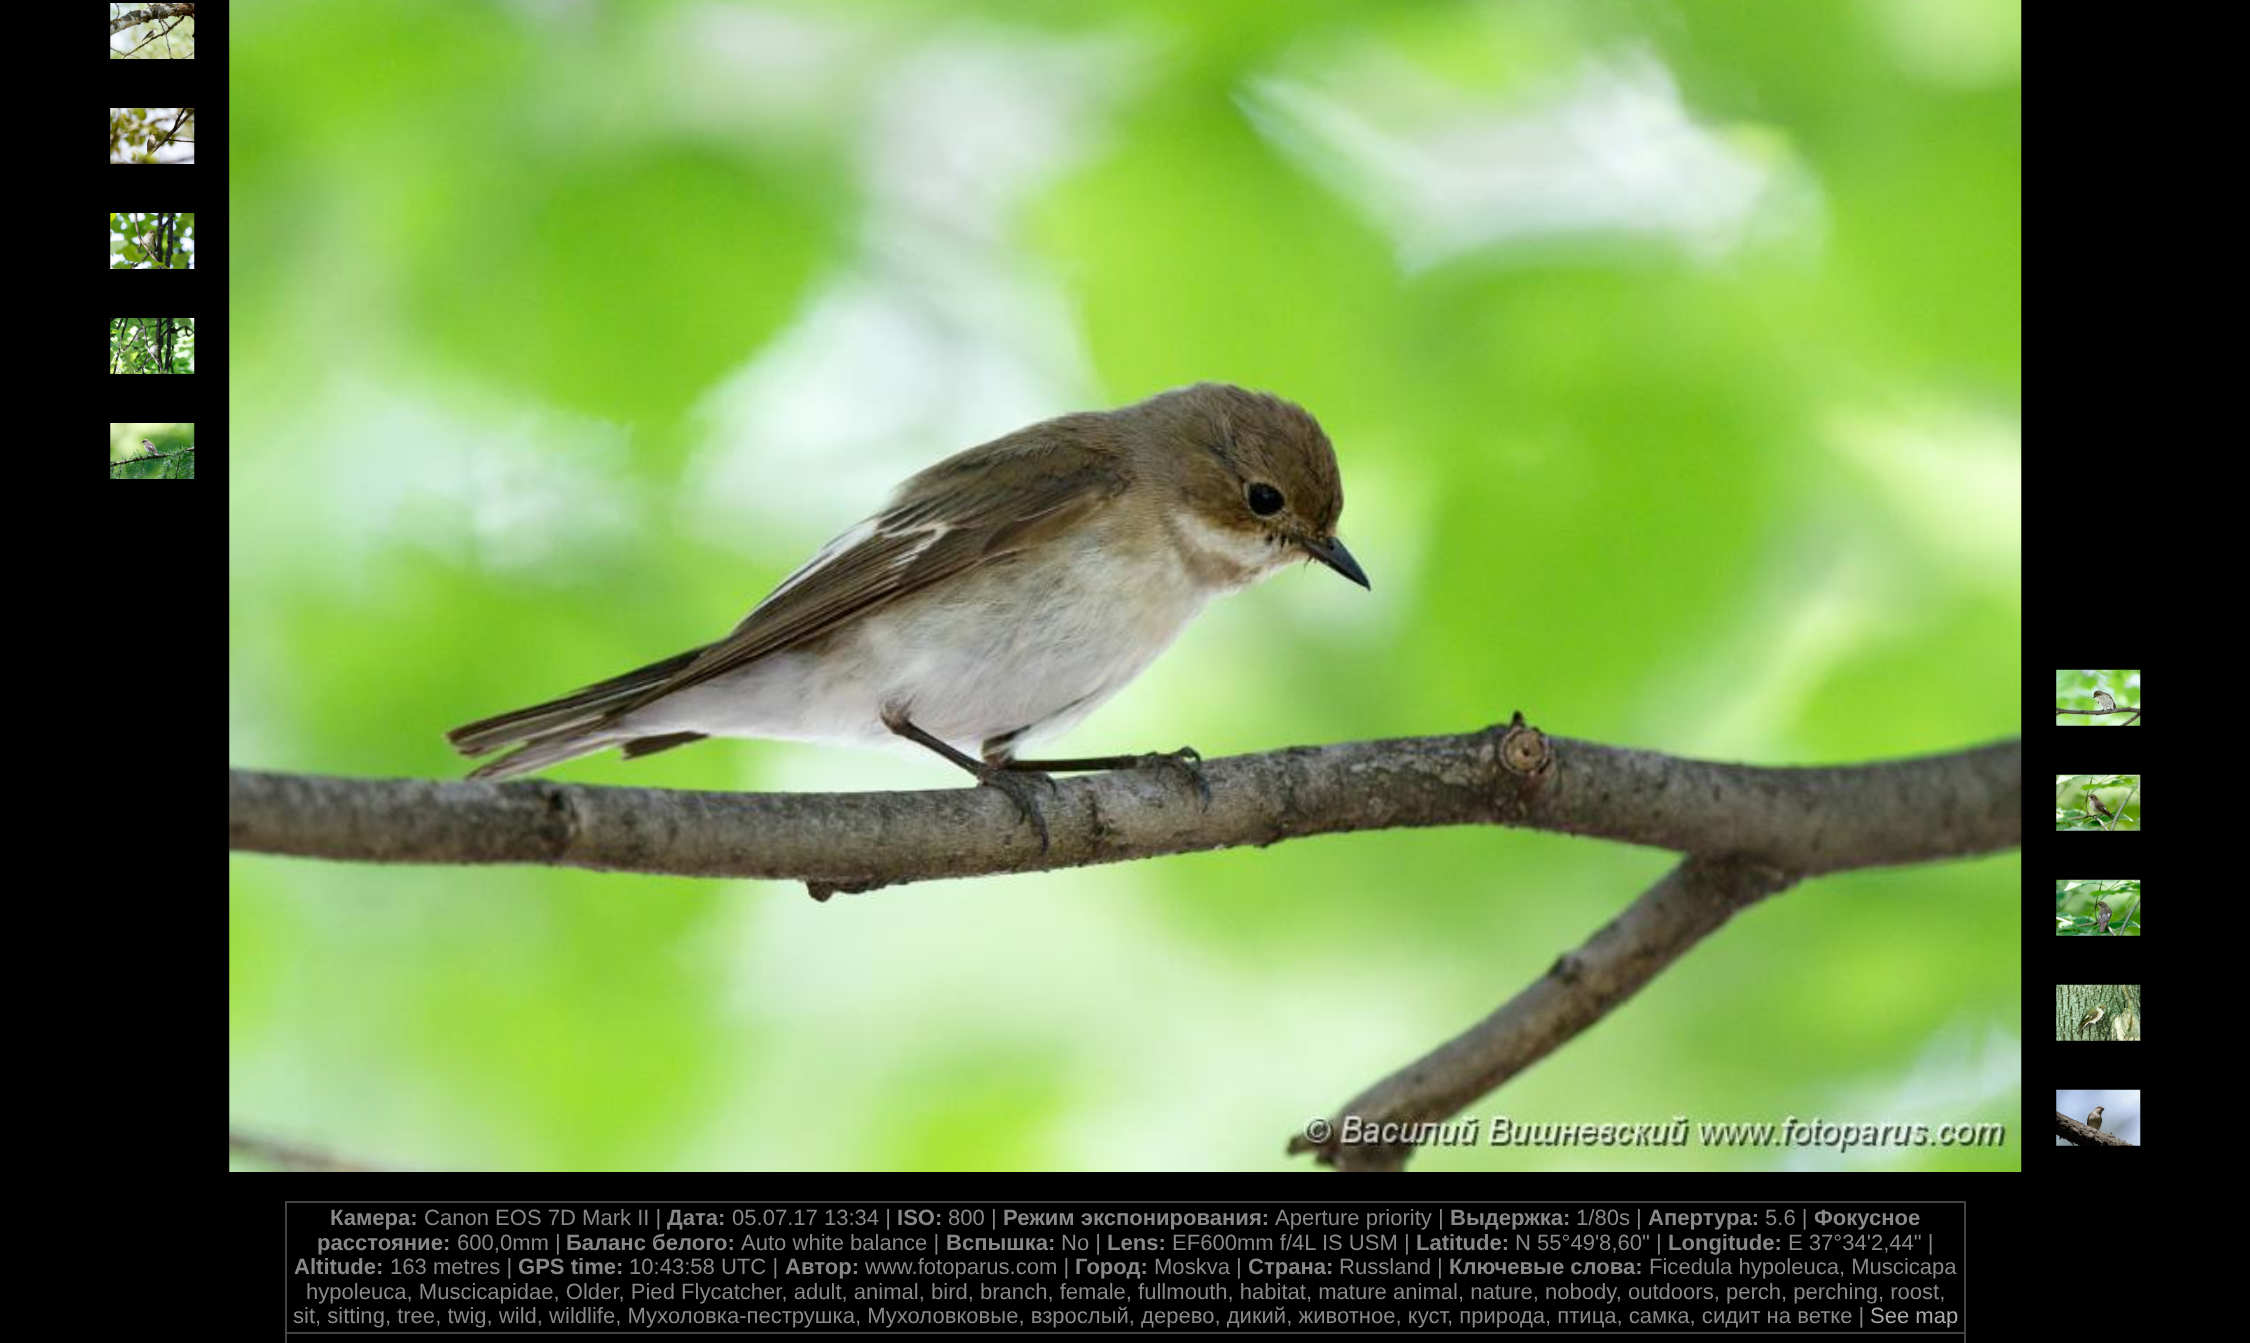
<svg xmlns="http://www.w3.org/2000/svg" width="2250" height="1343">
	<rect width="100%" height="100%" fill="#000000" />
	<image x="110" y="3" width="85" height="56" href="assets/img1.png" />
	<image x="110" y="108" width="85" height="56" href="assets/img2.png" />
	<image x="110" y="213" width="85" height="56" href="assets/img3.png" />
	<image x="110" y="318" width="85" height="56" href="assets/img4.png" />
	<image x="110" y="423" width="85" height="56" href="assets/img5.png" />
	<image x="229" y="0" width="1793" height="1172" href="assets/img6.png" />
	<image x="2056" y="669" width="85" height="57" href="assets/img7.png" />
	<image x="2056" y="774" width="85" height="57" href="assets/img8.png" />
	<image x="2056" y="879" width="85" height="57" href="assets/img9.png" />
	<image x="2056" y="984" width="85" height="57" href="assets/img10.png" />
	<image x="2056" y="1089" width="85" height="57" href="assets/img11.png" />
	<rect x="285" y="1201" width="1680" height="2" fill="#444444" />
	<rect x="1964" y="1201" width="2" height="142" fill="#444444" />
	<rect x="285" y="1201" width="2" height="142" fill="#444444" />
	<text x="330" y="1225" font-family="Liberation Sans" font-size="22.05" font-weight="700" fill="#888888">Камера:</text>
	<text x="424" y="1225" font-family="Liberation Sans" font-size="22.05" fill="#888888">Canon EOS 7D Mark II |</text>
	<text x="667" y="1225" font-family="Liberation Sans" font-size="22.05" font-weight="700" fill="#888888">Дата:</text>
	<text x="732" y="1225" font-family="Liberation Sans" font-size="22.05" fill="#888888">05.07.17 13:34 |</text>
	<text x="897" y="1225" font-family="Liberation Sans" font-size="22.05" font-weight="700" fill="#888888">ISO:</text>
	<text x="948" y="1225" font-family="Liberation Sans" font-size="22.05" fill="#888888">800 |</text>
	<text x="1003" y="1225" font-family="Liberation Sans" font-size="22.05" font-weight="700" fill="#888888">Режим экспонирования:</text>
	<text x="1275" y="1225" font-family="Liberation Sans" font-size="22.05" fill="#888888">Aperture priority |</text>
	<text x="1450" y="1225" font-family="Liberation Sans" font-size="22.05" font-weight="700" fill="#888888">Выдержка:</text>
	<text x="1576" y="1225" font-family="Liberation Sans" font-size="22.05" fill="#888888">1/80s |</text>
	<text x="1648" y="1225" font-family="Liberation Sans" font-size="22.05" font-weight="700" fill="#888888">Апертура:</text>
	<text x="1765" y="1225" font-family="Liberation Sans" font-size="22.05" fill="#888888">5.6 |</text>
	<g font-family="Liberation Sans" font-size="22.05" font-weight="700" fill="#888888">
		<text x="1814" y="1225">Фокусное</text>
		<text x="317" y="1250">расстояние:</text>
	</g>
	<text x="457" y="1250" font-family="Liberation Sans" font-size="22.05" fill="#888888">600,0mm |</text>
	<text x="566" y="1250" font-family="Liberation Sans" font-size="22.05" font-weight="700" fill="#888888">Баланс белого:</text>
	<text x="741" y="1250" font-family="Liberation Sans" font-size="22.05" fill="#888888">Auto white balance |</text>
	<text x="946" y="1250" font-family="Liberation Sans" font-size="22.05" font-weight="700" fill="#888888">Вспышка:</text>
	<text x="1061" y="1250" font-family="Liberation Sans" font-size="22.05" fill="#888888">No |</text>
	<text x="1107" y="1250" font-family="Liberation Sans" font-size="22.05" font-weight="700" fill="#888888">Lens:</text>
	<text x="1172" y="1250" font-family="Liberation Sans" font-size="22.05" fill="#888888">EF600mm f/4L IS USM |</text>
	<text x="1416" y="1250" font-family="Liberation Sans" font-size="22.05" font-weight="700" fill="#888888">Latitude:</text>
	<text x="1515" y="1250" font-family="Liberation Sans" font-size="22.05" fill="#888888">N 55°49'8,60" |</text>
	<text x="1668" y="1250" font-family="Liberation Sans" font-size="22.05" font-weight="700" fill="#888888">Longitude:</text>
	<text x="1788" y="1250" font-family="Liberation Sans" font-size="22.05" fill="#888888">E 37°34'2,44" |</text>
	<text x="294" y="1274" font-family="Liberation Sans" font-size="22.05" font-weight="700" fill="#888888">Altitude:</text>
	<text x="390" y="1274" font-family="Liberation Sans" font-size="22.05" fill="#888888">163 metres |</text>
	<text x="518" y="1274" font-family="Liberation Sans" font-size="22.05" font-weight="700" fill="#888888">GPS time:</text>
	<text x="629" y="1274" font-family="Liberation Sans" font-size="22.05" fill="#888888">10:43:58 UTC |</text>
	<text x="785" y="1274" font-family="Liberation Sans" font-size="22.05" font-weight="700" fill="#888888">Автор:</text>
	<text x="865" y="1274" font-family="Liberation Sans" font-size="22.05" fill="#888888">www.fotoparus.com |</text>
	<text x="1075" y="1274" font-family="Liberation Sans" font-size="22.05" font-weight="700" fill="#888888">Город:</text>
	<text x="1154" y="1274" font-family="Liberation Sans" font-size="22.05" fill="#888888">Moskva |</text>
	<text x="1248" y="1274" font-family="Liberation Sans" font-size="22.05" font-weight="700" fill="#888888">Страна:</text>
	<text x="1339" y="1274" font-family="Liberation Sans" font-size="22.05" fill="#888888">Russland |</text>
	<text x="1449" y="1274" font-family="Liberation Sans" font-size="22.05" font-weight="700" fill="#888888">Ключевые слова:</text>
	<g font-family="Liberation Sans" font-size="22.05" fill="#888888">
		<text x="1649" y="1274">Ficedula hypoleuca, Muscicapa</text>
		<text x="306" y="1299">hypoleuca, Muscicapidae, Older, Pied Flycatcher, adult, animal, bird, branch, female, fullmouth, habitat, mature animal, nature, nobody, outdoors, perch, perching, roost,</text>
		<text x="293" y="1323">sit, sitting, tree, twig, wild, wildlife, Мухоловка-пеструшка, Мухоловковые, взрослый, дерево, дикий, животное, куст, природа, птица, самка, сидит на ветке |</text>
	</g>
	<text x="1870" y="1323" font-family="Liberation Sans" font-size="22.05" fill="#AAAAAA">See map</text>
	<rect x="285" y="1332" width="1680" height="2" fill="#444444" />
</svg>
